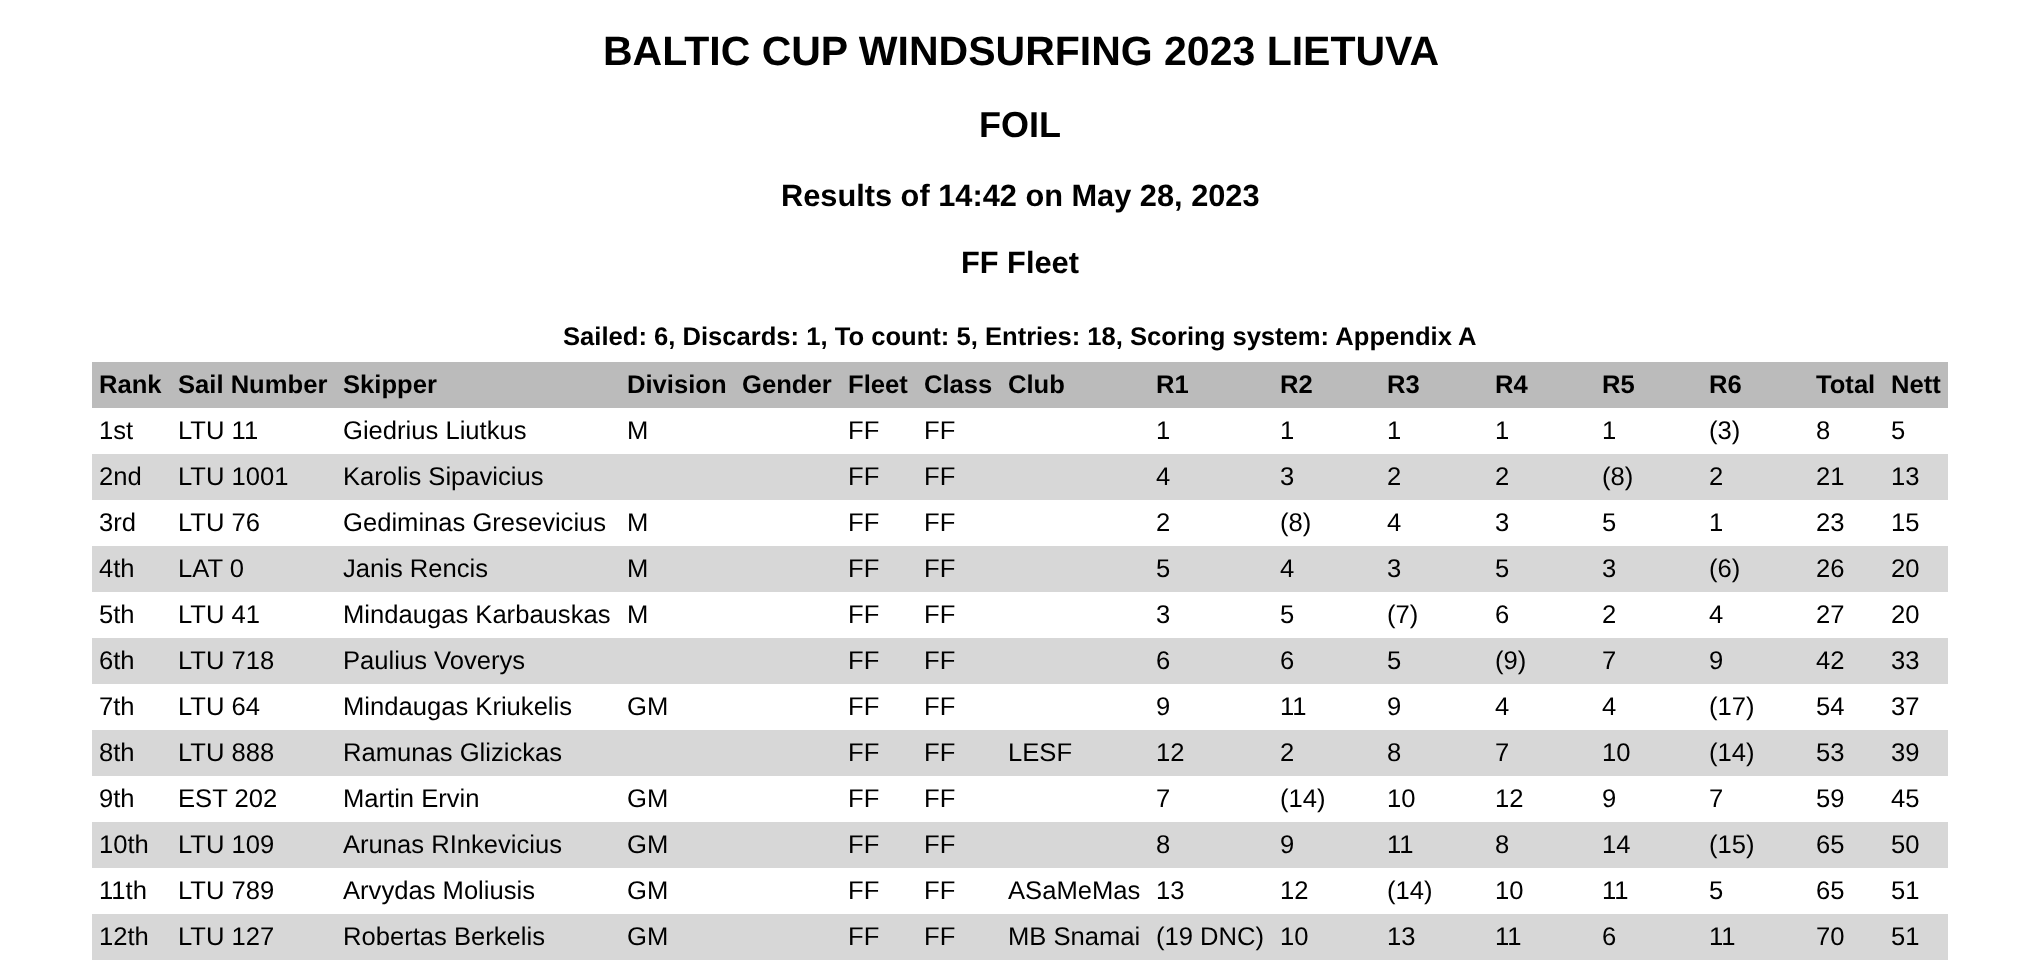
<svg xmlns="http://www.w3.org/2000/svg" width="2040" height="973">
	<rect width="100%" height="100%" fill="#FFFFFF" />
	<text x="603" y="65" font-family="Liberation Sans" font-size="41" font-weight="700" fill="#000000">BALTIC CUP WINDSURFING 2023 LIETUVA</text>
	<text x="979" y="137" font-family="Liberation Sans" font-size="36" font-weight="700" fill="#000000">FOIL</text>
	<g font-family="Liberation Sans" font-size="30.75" font-weight="700" fill="#000000">
		<text x="781" y="206">Results of 14:42 on May 28, 2023</text>
		<text x="961" y="273">FF Fleet</text>
	</g>
	<text x="563" y="345" font-family="Liberation Sans" font-size="25.6" font-weight="700" fill="#000000">Sailed: 6, Discards: 1, To count: 5, Entries: 18, Scoring system: Appendix A</text>
	<rect x="92" y="362" width="1856" height="46" fill="#BBBBBB" />
	<g font-family="Liberation Sans" font-size="25.6" font-weight="700" fill="#000000">
		<text x="99" y="393">Rank</text>
		<text x="178" y="393">Sail Number</text>
		<text x="343" y="393">Skipper</text>
		<text x="627" y="393">Division</text>
		<text x="742" y="393">Gender</text>
		<text x="848" y="393">Fleet</text>
		<text x="924" y="393">Class</text>
		<text x="1008" y="393">Club</text>
		<text x="1156" y="393">R1</text>
		<text x="1280" y="393">R2</text>
		<text x="1387" y="393">R3</text>
		<text x="1495" y="393">R4</text>
		<text x="1602" y="393">R5</text>
		<text x="1709" y="393">R6</text>
		<text x="1816" y="393">Total</text>
		<text x="1891" y="393">Nett</text>
	</g>
	<g font-family="Liberation Sans" font-size="25.6" fill="#000000">
		<text x="99" y="439">1st</text>
		<text x="178" y="439">LTU 11</text>
		<text x="343" y="439">Giedrius Liutkus</text>
		<text x="627" y="439">M</text>
		<text x="848" y="439">FF</text>
		<text x="924" y="439">FF</text>
		<text x="1156" y="439">1</text>
		<text x="1280" y="439">1</text>
		<text x="1387" y="439">1</text>
		<text x="1495" y="439">1</text>
		<text x="1602" y="439">1</text>
		<text x="1709" y="439">(3)</text>
		<text x="1816" y="439">8</text>
		<text x="1891" y="439">5</text>
	</g>
	<rect x="92" y="454" width="1856" height="46" fill="#D7D7D7" />
	<g font-family="Liberation Sans" font-size="25.6" fill="#000000">
		<text x="99" y="485">2nd</text>
		<text x="178" y="485">LTU 1001</text>
		<text x="343" y="485">Karolis Sipavicius</text>
		<text x="848" y="485">FF</text>
		<text x="924" y="485">FF</text>
		<text x="1156" y="485">4</text>
		<text x="1280" y="485">3</text>
		<text x="1387" y="485">2</text>
		<text x="1495" y="485">2</text>
		<text x="1602" y="485">(8)</text>
		<text x="1709" y="485">2</text>
		<text x="1816" y="485">21</text>
		<text x="1891" y="485">13</text>
		<text x="99" y="531">3rd</text>
		<text x="178" y="531">LTU 76</text>
		<text x="343" y="531">Gediminas Gresevicius</text>
		<text x="627" y="531">M</text>
		<text x="848" y="531">FF</text>
		<text x="924" y="531">FF</text>
		<text x="1156" y="531">2</text>
		<text x="1280" y="531">(8)</text>
		<text x="1387" y="531">4</text>
		<text x="1495" y="531">3</text>
		<text x="1602" y="531">5</text>
		<text x="1709" y="531">1</text>
		<text x="1816" y="531">23</text>
		<text x="1891" y="531">15</text>
	</g>
	<rect x="92" y="546" width="1856" height="46" fill="#D7D7D7" />
	<g font-family="Liberation Sans" font-size="25.6" fill="#000000">
		<text x="99" y="577">4th</text>
		<text x="178" y="577">LAT 0</text>
		<text x="343" y="577">Janis Rencis</text>
		<text x="627" y="577">M</text>
		<text x="848" y="577">FF</text>
		<text x="924" y="577">FF</text>
		<text x="1156" y="577">5</text>
		<text x="1280" y="577">4</text>
		<text x="1387" y="577">3</text>
		<text x="1495" y="577">5</text>
		<text x="1602" y="577">3</text>
		<text x="1709" y="577">(6)</text>
		<text x="1816" y="577">26</text>
		<text x="1891" y="577">20</text>
		<text x="99" y="623">5th</text>
		<text x="178" y="623">LTU 41</text>
		<text x="343" y="623">Mindaugas Karbauskas</text>
		<text x="627" y="623">M</text>
		<text x="848" y="623">FF</text>
		<text x="924" y="623">FF</text>
		<text x="1156" y="623">3</text>
		<text x="1280" y="623">5</text>
		<text x="1387" y="623">(7)</text>
		<text x="1495" y="623">6</text>
		<text x="1602" y="623">2</text>
		<text x="1709" y="623">4</text>
		<text x="1816" y="623">27</text>
		<text x="1891" y="623">20</text>
	</g>
	<rect x="92" y="638" width="1856" height="46" fill="#D7D7D7" />
	<g font-family="Liberation Sans" font-size="25.6" fill="#000000">
		<text x="99" y="669">6th</text>
		<text x="178" y="669">LTU 718</text>
		<text x="343" y="669">Paulius Voverys</text>
		<text x="848" y="669">FF</text>
		<text x="924" y="669">FF</text>
		<text x="1156" y="669">6</text>
		<text x="1280" y="669">6</text>
		<text x="1387" y="669">5</text>
		<text x="1495" y="669">(9)</text>
		<text x="1602" y="669">7</text>
		<text x="1709" y="669">9</text>
		<text x="1816" y="669">42</text>
		<text x="1891" y="669">33</text>
		<text x="99" y="715">7th</text>
		<text x="178" y="715">LTU 64</text>
		<text x="343" y="715">Mindaugas Kriukelis</text>
		<text x="627" y="715">GM</text>
		<text x="848" y="715">FF</text>
		<text x="924" y="715">FF</text>
		<text x="1156" y="715">9</text>
		<text x="1280" y="715">11</text>
		<text x="1387" y="715">9</text>
		<text x="1495" y="715">4</text>
		<text x="1602" y="715">4</text>
		<text x="1709" y="715">(17)</text>
		<text x="1816" y="715">54</text>
		<text x="1891" y="715">37</text>
	</g>
	<rect x="92" y="730" width="1856" height="46" fill="#D7D7D7" />
	<g font-family="Liberation Sans" font-size="25.6" fill="#000000">
		<text x="99" y="761">8th</text>
		<text x="178" y="761">LTU 888</text>
		<text x="343" y="761">Ramunas Glizickas</text>
		<text x="848" y="761">FF</text>
		<text x="924" y="761">FF</text>
		<text x="1008" y="761">LESF</text>
		<text x="1156" y="761">12</text>
		<text x="1280" y="761">2</text>
		<text x="1387" y="761">8</text>
		<text x="1495" y="761">7</text>
		<text x="1602" y="761">10</text>
		<text x="1709" y="761">(14)</text>
		<text x="1816" y="761">53</text>
		<text x="1891" y="761">39</text>
		<text x="99" y="807">9th</text>
		<text x="178" y="807">EST 202</text>
		<text x="343" y="807">Martin Ervin</text>
		<text x="627" y="807">GM</text>
		<text x="848" y="807">FF</text>
		<text x="924" y="807">FF</text>
		<text x="1156" y="807">7</text>
		<text x="1280" y="807">(14)</text>
		<text x="1387" y="807">10</text>
		<text x="1495" y="807">12</text>
		<text x="1602" y="807">9</text>
		<text x="1709" y="807">7</text>
		<text x="1816" y="807">59</text>
		<text x="1891" y="807">45</text>
	</g>
	<rect x="92" y="822" width="1856" height="46" fill="#D7D7D7" />
	<g font-family="Liberation Sans" font-size="25.6" fill="#000000">
		<text x="99" y="853">10th</text>
		<text x="178" y="853">LTU 109</text>
		<text x="343" y="853">Arunas RInkevicius</text>
		<text x="627" y="853">GM</text>
		<text x="848" y="853">FF</text>
		<text x="924" y="853">FF</text>
		<text x="1156" y="853">8</text>
		<text x="1280" y="853">9</text>
		<text x="1387" y="853">11</text>
		<text x="1495" y="853">8</text>
		<text x="1602" y="853">14</text>
		<text x="1709" y="853">(15)</text>
		<text x="1816" y="853">65</text>
		<text x="1891" y="853">50</text>
		<text x="99" y="899">11th</text>
		<text x="178" y="899">LTU 789</text>
		<text x="343" y="899">Arvydas Moliusis</text>
		<text x="627" y="899">GM</text>
		<text x="848" y="899">FF</text>
		<text x="924" y="899">FF</text>
		<text x="1008" y="899">ASaMeMas</text>
		<text x="1156" y="899">13</text>
		<text x="1280" y="899">12</text>
		<text x="1387" y="899">(14)</text>
		<text x="1495" y="899">10</text>
		<text x="1602" y="899">11</text>
		<text x="1709" y="899">5</text>
		<text x="1816" y="899">65</text>
		<text x="1891" y="899">51</text>
	</g>
	<rect x="92" y="914" width="1856" height="46" fill="#D7D7D7" />
	<g font-family="Liberation Sans" font-size="25.6" fill="#000000">
		<text x="99" y="945">12th</text>
		<text x="178" y="945">LTU 127</text>
		<text x="343" y="945">Robertas Berkelis</text>
		<text x="627" y="945">GM</text>
		<text x="848" y="945">FF</text>
		<text x="924" y="945">FF</text>
		<text x="1008" y="945">MB Snamai</text>
		<text x="1156" y="945">(19 DNC)</text>
		<text x="1280" y="945">10</text>
		<text x="1387" y="945">13</text>
		<text x="1495" y="945">11</text>
		<text x="1602" y="945">6</text>
		<text x="1709" y="945">11</text>
		<text x="1816" y="945">70</text>
		<text x="1891" y="945">51</text>
	</g>
</svg>
